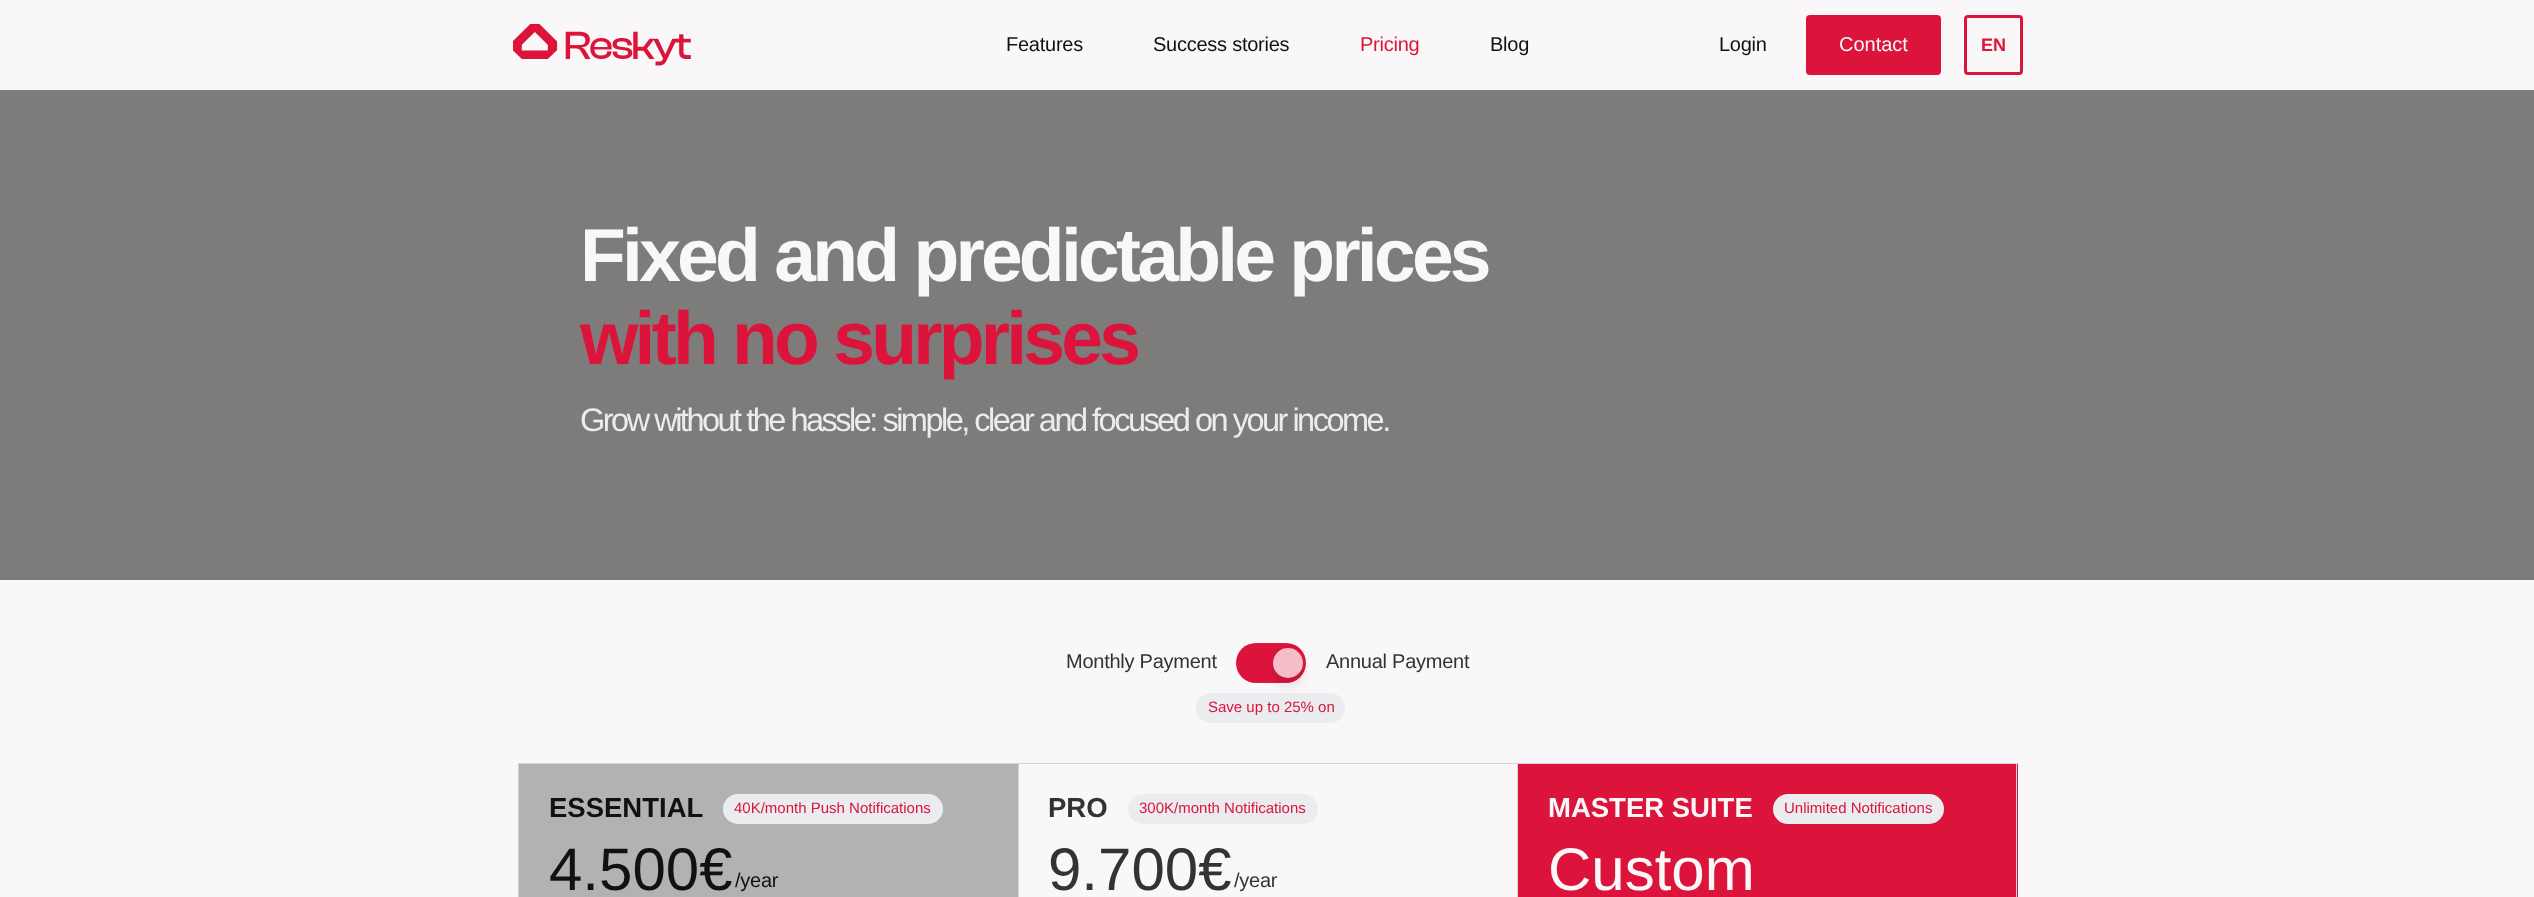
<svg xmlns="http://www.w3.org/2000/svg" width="2534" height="897">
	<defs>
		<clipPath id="clip1"><path d="M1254 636H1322V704H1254ZM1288 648C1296.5 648 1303 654.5 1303 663C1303 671.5 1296.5 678 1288 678C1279.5 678 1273 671.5 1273 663C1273 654.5 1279.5 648 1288 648Z" clip-rule="evenodd" /></clipPath>
	</defs>
	<rect width="100%" height="100%" fill="#F9F7F7" />
	<image x="513" y="24" width="178" height="42" href="assets/img1.png" />
	<g font-family="Liberation Sans" font-size="20" letter-spacing="-0.25" fill="#111111">
		<text x="1006" y="51">Features</text>
		<text x="1153" y="51">Success stories</text>
	</g>
	<text x="1360" y="51" font-family="Liberation Sans" font-size="20" letter-spacing="-0.25" fill="#DC143C">Pricing</text>
	<g font-family="Liberation Sans" font-size="20" letter-spacing="-0.25" fill="#111111">
		<text x="1490" y="51">Blog</text>
		<text x="1719" y="51">Login</text>
	</g>
	<rect x="1807.5" y="16.5" width="132" height="57" rx="2.5" fill="#DC143C" stroke="#DC143C" stroke-width="3" />
	<text x="1839" y="51" font-family="Liberation Sans" font-size="20" fill="#F9F7F7">Contact</text>
	<rect x="1965.5" y="16.5" width="56" height="57" rx="2.5" fill="none" stroke="#DC143C" stroke-width="3" />
	<text x="1981" y="51" font-family="Liberation Sans" font-size="18" font-weight="700" fill="#DC143C">EN</text>
	<rect x="0" y="90" width="2534" height="490" fill="#7E7B7B" />
	<text x="580" y="281" font-family="Liberation Sans" font-size="75" font-weight="700" letter-spacing="-3.75" fill="#F9F7F7">Fixed and predictable prices</text>
	<text x="580" y="364" font-family="Liberation Sans" font-size="75" font-weight="700" letter-spacing="-3.75" fill="#DC143C">with no surprises</text>
	<text x="580" y="431" font-family="Liberation Sans" font-size="32.5" letter-spacing="-2.5" fill="#EAECF0">Grow without the hassle: simple, clear and focused on your income.</text>
	<g font-family="Liberation Sans" font-size="20" letter-spacing="-0.25" fill="#333333">
		<text x="1066" y="668">Monthly Payment</text>
		<text x="1326" y="668">Annual Payment</text>
	</g>
	<rect x="1236" y="643" width="70" height="40" rx="20" fill="#DC143C" />
	<rect x="1236.5" y="643.5" width="69" height="39" fill="none" stroke="#FFFFFF" stroke-opacity="0.04" />
	<g clip-path="url(#clip1)">
		<rect x="1273" y="655" width="30" height="30" rx="15" fill="#131315" fill-opacity="0.12" filter="blur(6px)" />
	</g>
	<circle cx="1288" cy="663" r="15" fill="#FFFFFF" fill-opacity="0.72" />
	<rect x="1196" y="693" width="149" height="30" rx="15" fill="#EAECF0" />
	<text x="1208" y="712" font-family="Liberation Sans" font-size="15" fill="#DC143C">Save up to 25% on</text>
	<rect x="519" y="764" width="499" height="133" fill="#B3B2B2" />
	<rect x="518" y="763" width="500" height="1" fill="#D0D5DD" />
	<rect x="518" y="763" width="1" height="134" fill="#D0D5DD" />
	<text x="549" y="817" font-family="Liberation Sans" font-size="27.5" font-weight="700" fill="#111111">ESSENTIAL</text>
	<rect x="723" y="794" width="220" height="30" rx="15" fill="#EAECF0" />
	<rect x="723.5" y="794.5" width="219" height="29" rx="14.5" fill="none" stroke="#FFFFFF" stroke-opacity="0.12" />
	<text x="734" y="813" font-family="Liberation Sans" font-size="15" fill="#DC143C">40K/month Push Notifications</text>
	<text x="549" y="890" font-family="Liberation Sans" font-size="60" fill="#111111">4.500€</text>
	<text x="735" y="887" font-family="Liberation Sans" font-size="20" letter-spacing="-0.25" fill="#111111">/year</text>
	<rect x="1018.5" y="763.5" width="499" height="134" fill="none" stroke="#D0D5DD" />
	<text x="1048" y="817" font-family="Liberation Sans" font-size="27.5" font-weight="700" fill="#333333">PRO</text>
	<rect x="1128" y="794" width="190" height="30" rx="15" fill="#EAECF0" />
	<text x="1139" y="813" font-family="Liberation Sans" font-size="15" fill="#DC143C">300K/month Notifications</text>
	<text x="1048" y="890" font-family="Liberation Sans" font-size="60" fill="#333333">9.700€</text>
	<text x="1234" y="887" font-family="Liberation Sans" font-size="20" letter-spacing="-0.25" fill="#333333">/year</text>
	<rect x="1518" y="764" width="500" height="133" fill="#DC143C" />
	<rect x="1518" y="763" width="500" height="1" fill="#D0D5DD" />
	<rect x="2016" y="763" width="1" height="134" fill="#D0D5DD" />
	<text x="1548" y="817" font-family="Liberation Sans" font-size="27.5" font-weight="700" fill="#F9F7F7">MASTER SUITE</text>
	<rect x="1773" y="794" width="171" height="30" rx="15" fill="#EAECF0" />
	<rect x="1773.5" y="794.5" width="170" height="29" rx="14.5" fill="none" stroke="#FFFFFF" stroke-opacity="0.12" />
	<text x="1784" y="813" font-family="Liberation Sans" font-size="15" fill="#DC143C">Unlimited Notifications</text>
	<text x="1548" y="890" font-family="Liberation Sans" font-size="60" fill="#F9F7F7">Custom</text>
</svg>
